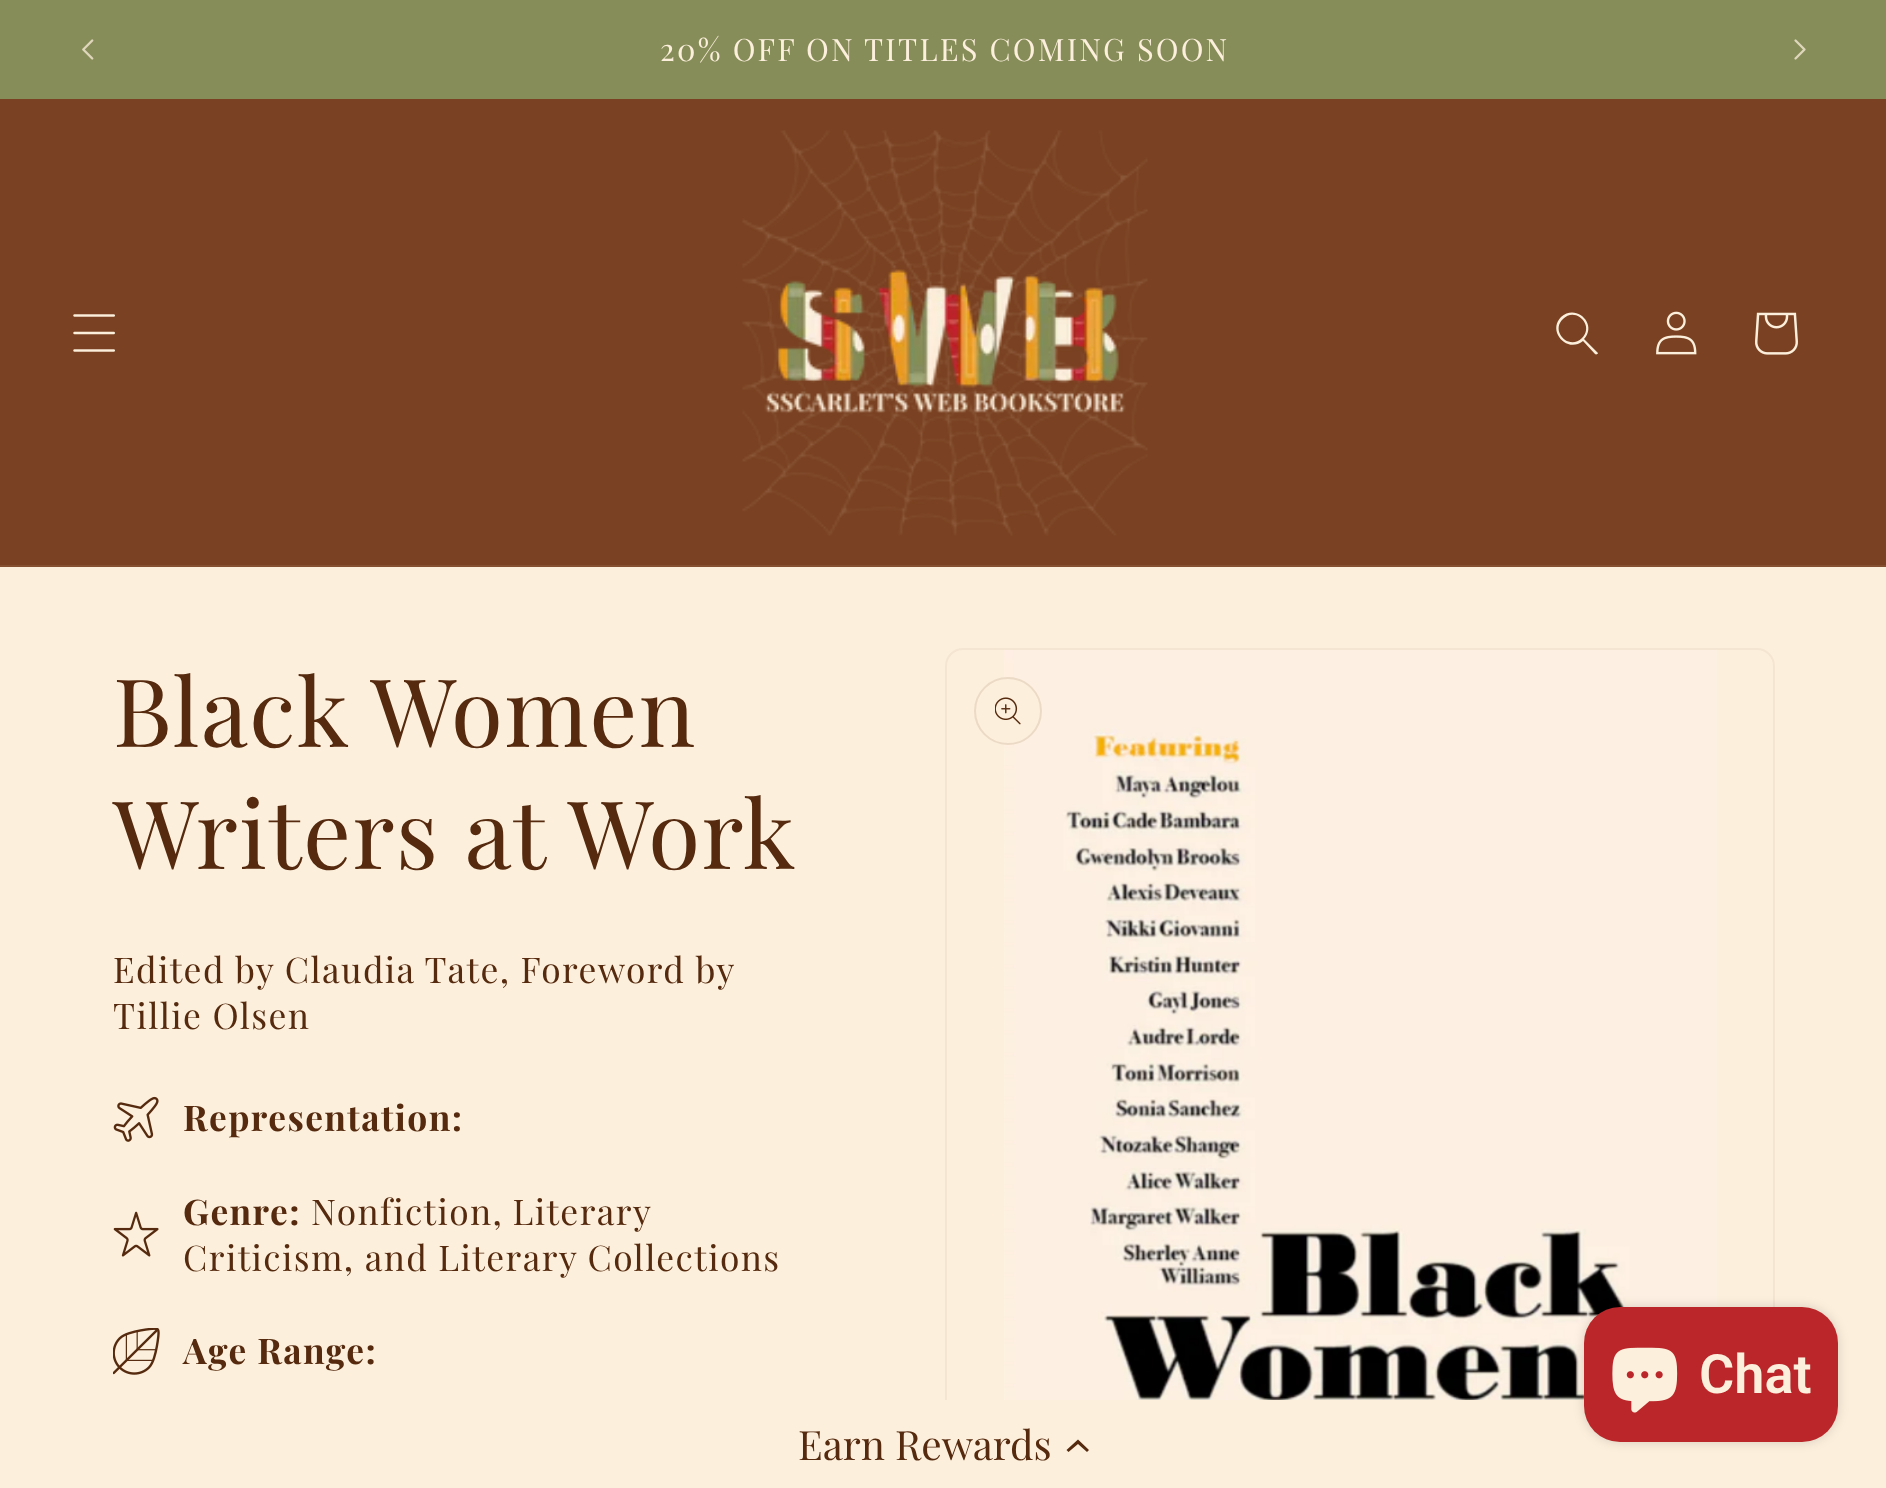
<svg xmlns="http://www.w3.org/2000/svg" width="1886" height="1488">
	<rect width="100%" height="100%" fill="#FCEFDC" />
	<rect x="0" y="0" width="1886" height="99" fill="#868D59" />
	<image x="82" y="39" width="12" height="21" href="assets/img1.png" />
	<text x="660" y="61" font-family="Playfair Display" font-size="30.75" letter-spacing="2.25" fill="#FCEFDC">20% OFF ON TITLES COMING SOON</text>
	<image x="1794" y="39" width="12" height="21" href="assets/img2.png" />
	<rect x="0" y="99" width="1886" height="466" fill="#7A4222" />
	<rect x="0" y="565" width="1886" height="2" fill="#845031" />
	<image x="73" y="314" width="42" height="38" href="assets/img3.png" />
	<image x="742" y="130" width="406" height="406" href="assets/img4.png" />
	<path d="M1582 338C1569 351 1550 331 1563 319C1575 306 1595 325 1582 338M1583 341C1567 354 1547 331 1561 317C1576 303 1598 324 1584 339L1598 353C1598 354 1596 355 1595 354Z" fill="#FCEFDC" fill-rule="evenodd" />
	<image x="1656" y="311" width="41" height="44" href="assets/img5.png" />
	<image x="1755" y="312" width="43" height="43" href="assets/img6.png" />
	<g font-family="Playfair Display" font-size="94.5" letter-spacing="1.4" fill="#552A0E">
		<text x="113" y="747">Black Women</text>
		<text x="113" y="869">Writers at Work</text>
	</g>
	<g font-family="Playfair Display" font-size="35.4" letter-spacing="1.4" fill="#552A0E">
		<text x="113" y="983">Edited by Claudia Tate, Foreword by</text>
		<text x="113" y="1029">Tillie Olsen</text>
	</g>
	<image x="113" y="1096" width="46" height="46" href="assets/img7.png" />
	<text x="183" y="1131" font-family="Playfair Display" font-size="35.4" font-weight="700" letter-spacing="1.4" fill="#552A0E">Representation:</text>
	<image x="113" y="1211" width="46" height="46" href="assets/img8.png" />
	<text x="183" y="1225" font-family="Playfair Display" font-size="35.4" font-weight="700" letter-spacing="1.4" fill="#552A0E">Genre:</text>
	<g font-family="Playfair Display" font-size="35.4" letter-spacing="1.4" fill="#552A0E">
		<text x="311" y="1225" word-spacing="-1">Nonfiction, Literary</text>
		<text x="183" y="1271">Criticism, and Literary Collections</text>
	</g>
	<image x="113" y="1328" width="47" height="47" href="assets/img9.png" />
	<text x="183" y="1364" font-family="Playfair Display" font-size="35.4" font-weight="700" letter-spacing="1.4" fill="#552A0E">Age Range:</text>
	<rect x="946" y="649" width="828" height="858" rx="17" fill="none" stroke="#F4E5D2" stroke-width="2" />
	<image x="1004" y="650" width="713" height="750" href="assets/img10.png" />
	<circle cx="1008" cy="711" r="34" fill="#FCEFDC" />
	<circle cx="1008" cy="711" r="33" fill="none" stroke="#552A0E" stroke-opacity="0.1" stroke-width="2" />
	<image x="995" y="697" width="26" height="28" href="assets/img11.png" />
	<rect x="945" y="1400" width="830" height="88" fill="#FCEFDC" />
	<rect x="1584" y="1307" width="254" height="135" rx="36" fill="#000000" fill-opacity="0.15" filter="blur(5.5px)" />
	<rect x="1584" y="1307" width="254" height="135" rx="36" fill="#BA262A" />
	<image x="1612" y="1347" width="66" height="66" href="assets/img12.png" />
	<text x="1699" y="1393" font-family="Roboto" font-size="54" font-weight="600" fill="#FCEFDC">Chat</text>
	<text x="798" y="1460" font-family="Playfair Display" font-size="40.5" fill="#552A0E">Earn Rewards</text>
	<path d="M1078 1444L1068.5 1452L1066.5 1450L1078 1439.5L1089 1450L1087 1452Z" fill="#552A0E" />
</svg>
